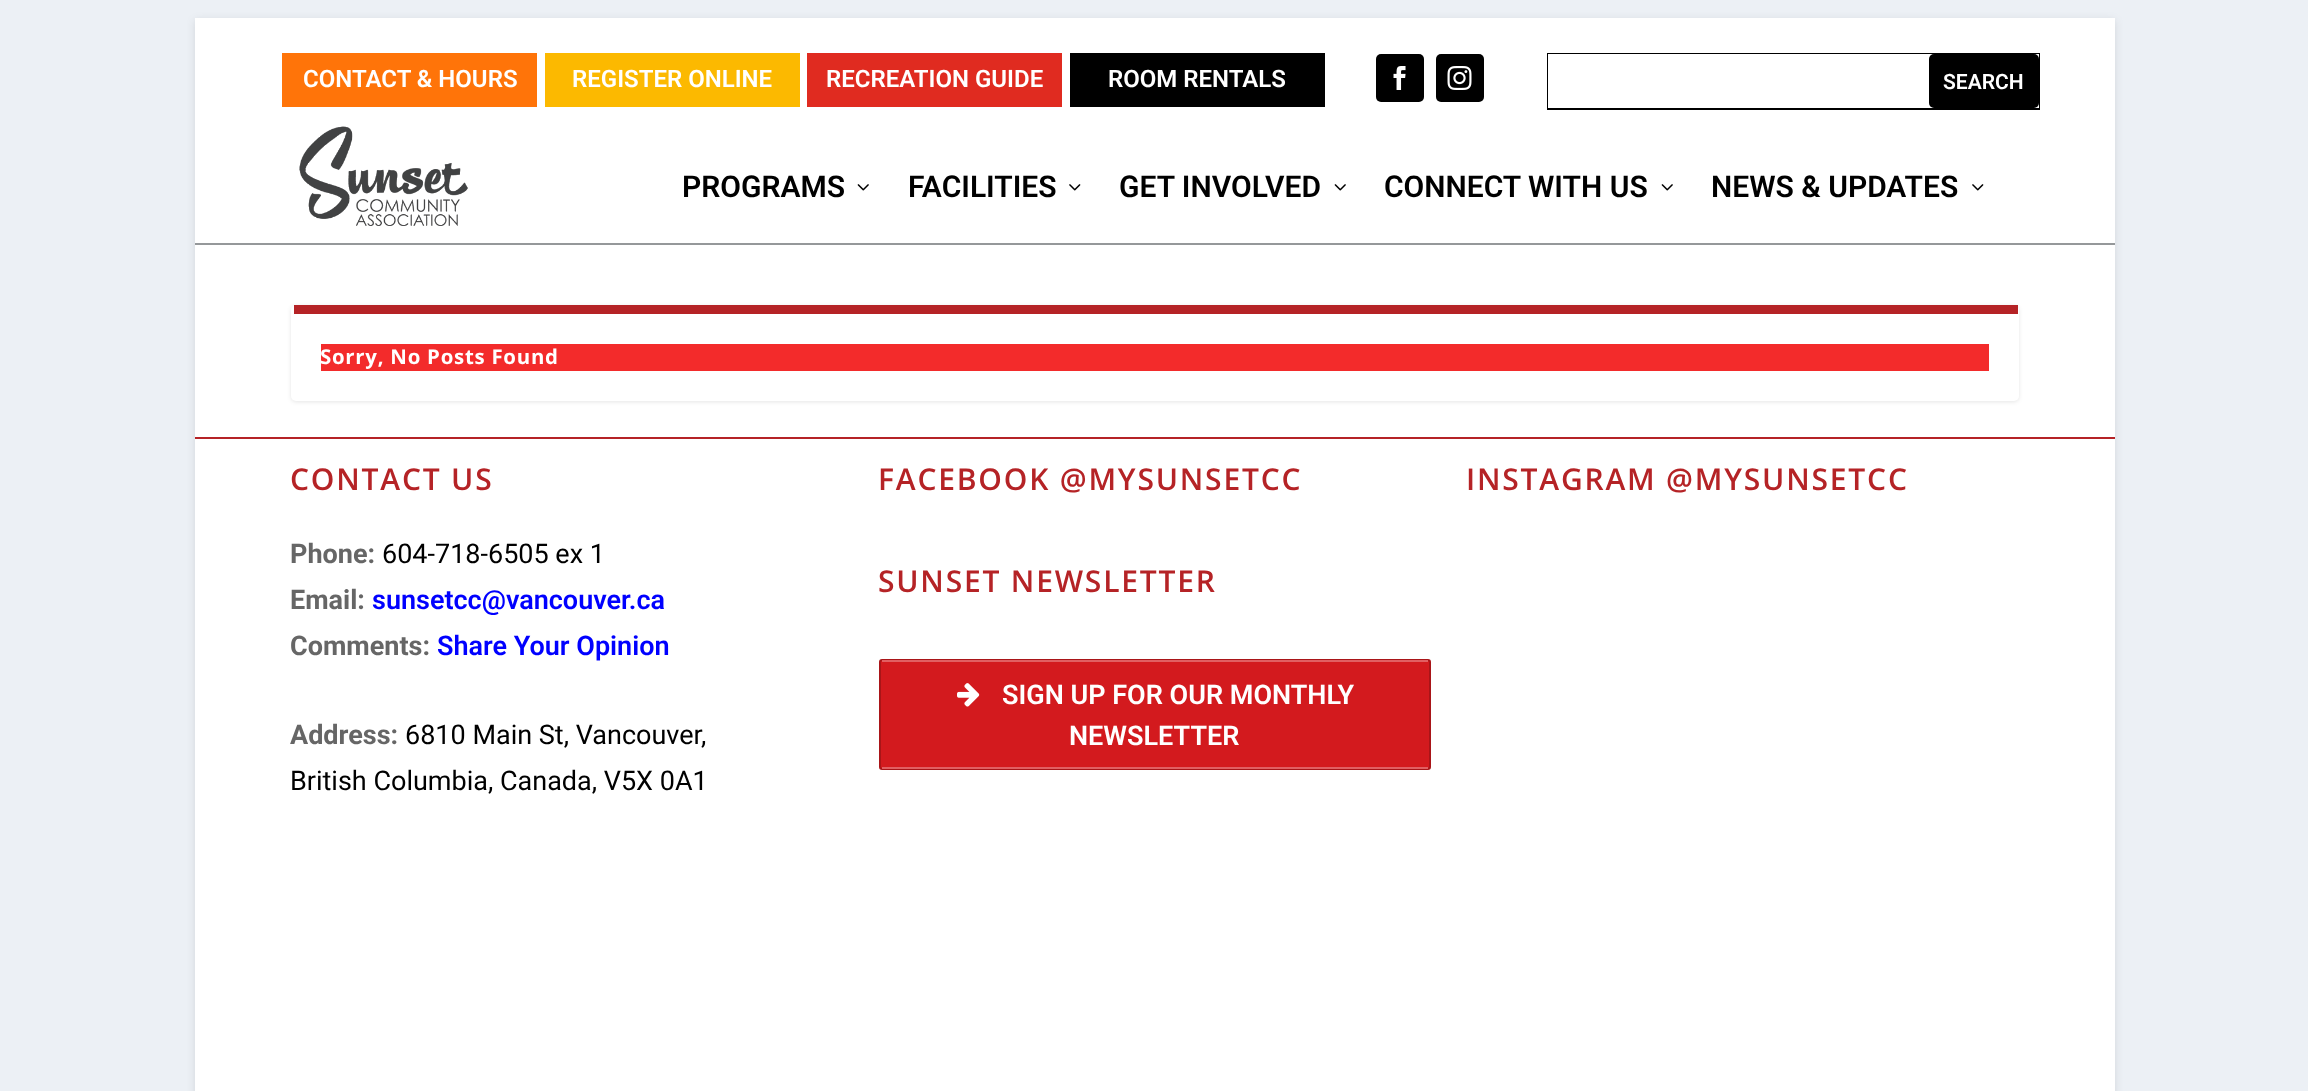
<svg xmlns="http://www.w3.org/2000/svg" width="2308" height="1091">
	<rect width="100%" height="100%" fill="#ECF0F5" />
	<rect x="195" y="20" width="1920" height="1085" fill="#000000" fill-opacity="0.1" filter="blur(4.5px)" />
	<rect x="195" y="18" width="1920" height="1073" fill="#FFFFFF" />
	<rect x="282" y="53" width="255" height="54" fill="#FF7409" />
	<text x="303" y="87" font-family="Roboto" font-size="24" font-weight="600" fill="#FFFFFF">CONTACT &amp; HOURS</text>
	<rect x="545" y="53" width="255" height="54" fill="#FCB900" />
	<text x="572" y="87" font-family="Roboto" font-size="24" font-weight="600" fill="#FFFFFF">REGISTER ONLINE</text>
	<rect x="807" y="53" width="255" height="54" fill="#E02B20" />
	<text x="826" y="87" font-family="Roboto" font-size="24" font-weight="600" fill="#FFFFFF">RECREATION GUIDE</text>
	<rect x="1070" y="53" width="255" height="54" fill="#000000" />
	<text x="1108" y="87" font-family="Roboto" font-size="24" font-weight="600" fill="#FFFFFF">ROOM RENTALS</text>
	<rect x="1376" y="54" width="48" height="48" rx="5" fill="#000000" />
	<image x="1393" y="66" width="13" height="24" href="assets/img1.png" />
	<rect x="1436" y="54" width="48" height="48" rx="5" fill="#000000" />
	<image x="1447" y="66" width="25" height="24" href="assets/img2.png" />
	<rect x="1548" y="54" width="491" height="55" fill="none" stroke="#000000" stroke-width="2" />
	<rect x="1548" y="54" width="491" height="54" fill="#FFFFFF" />
	<rect x="1929" y="54" width="110" height="54" rx="5" fill="#000000" />
	<text x="1943" y="89" font-family="Roboto" font-size="21" font-weight="600" fill="#FFFFFF">SEARCH</text>
	<rect x="195" y="243" width="1920" height="2" fill="#95989A" />
	<image x="299" y="126" width="169" height="100" href="assets/img3.png" />
	<text x="682" y="197" font-family="Roboto" font-size="30" font-weight="600" fill="#000000">PROGRAMS</text>
	<image x="857" y="184" width="12" height="7" href="assets/img4.png" />
	<text x="908" y="197" font-family="Roboto" font-size="30" font-weight="600" fill="#000000">FACILITIES</text>
	<image x="1069" y="184" width="12" height="7" href="assets/img5.png" />
	<text x="1119" y="197" font-family="Roboto" font-size="30" font-weight="600" fill="#000000">GET INVOLVED</text>
	<image x="1334" y="184" width="12" height="7" href="assets/img4.png" />
	<text x="1384" y="197" font-family="Roboto" font-size="30" font-weight="600" fill="#000000">CONNECT WITH US</text>
	<image x="1661" y="184" width="12" height="7" href="assets/img4.png" />
	<text x="1711" y="197" font-family="Roboto" font-size="30" font-weight="600" fill="#000000">NEWS &amp; UPDATES</text>
	<image x="1972" y="184" width="12" height="7" href="assets/img5.png" />
	<rect x="291" y="306" width="1728" height="96" rx="5" fill="#000000" fill-opacity="0.1" filter="blur(2px)" />
	<rect x="291" y="305" width="1728" height="96" rx="5" fill="#FFFFFF" />
	<rect x="294" y="305" width="1724" height="9" fill="#B52326" />
	<rect x="321" y="344" width="1668" height="27" fill="#F32B2B" />
	<text x="320" y="364" font-family="Open Sans" font-size="20.4" font-weight="700" letter-spacing="0.75" fill="#FFFFFF">Sorry, No Posts Found</text>
	<rect x="195" y="437" width="1920" height="2" fill="#B52326" />
	<text x="290" y="490" font-family="Open Sans" font-size="30" font-weight="600" letter-spacing="1.8" fill="#B52326">CONTACT US</text>
	<text x="290" y="563" font-family="Roboto" font-size="27" font-weight="700" fill="#666666">Phone:</text>
	<text x="382" y="563" font-family="Roboto" font-size="27" fill="#000000">604-718-6505 ex 1</text>
	<text x="290" y="609" font-family="Roboto" font-size="27" font-weight="700" fill="#666666">Email:</text>
	<text x="372" y="609" font-family="Roboto" font-size="27" font-weight="600" fill="#0000FF">sunsetcc@vancouver.ca</text>
	<text x="290" y="655" font-family="Roboto" font-size="27" font-weight="700" fill="#666666">Comments:</text>
	<text x="437" y="655" font-family="Roboto" font-size="27" font-weight="600" fill="#0000FF">Share Your Opinion</text>
	<text x="290" y="744" font-family="Roboto" font-size="27" font-weight="700" fill="#666666">Address:</text>
	<g font-family="Roboto" font-size="27" fill="#000000">
		<text x="405" y="744">6810 Main St, Vancouver,</text>
		<text x="290" y="790">British Columbia, Canada, V5X 0A1</text>
	</g>
	<g font-family="Open Sans" font-size="30" font-weight="600" letter-spacing="1.8" fill="#B52326">
		<text x="878" y="490">FACEBOOK @MYSUNSETCC</text>
		<text x="878" y="592">SUNSET NEWSLETTER</text>
	</g>
	<rect x="880" y="660" width="550" height="109" rx="2" fill="#D31A1E" stroke="#A91518" stroke-width="2" />
	<rect x="882" y="660" width="546" height="2" fill="#E15F62" />
	<rect x="882" y="767" width="546" height="2" fill="#E15F62" />
	<image x="957" y="683" width="23" height="24" href="assets/img6.png" />
	<g font-family="Roboto" font-size="27" font-weight="600" fill="#FFFFFF">
		<text x="1002" y="704">SIGN UP FOR OUR MONTHLY</text>
		<text x="1069" y="745">NEWSLETTER</text>
	</g>
	<text x="1466" y="490" font-family="Open Sans" font-size="30" font-weight="600" letter-spacing="1.8" fill="#B52326">INSTAGRAM @MYSUNSETCC</text>
</svg>
